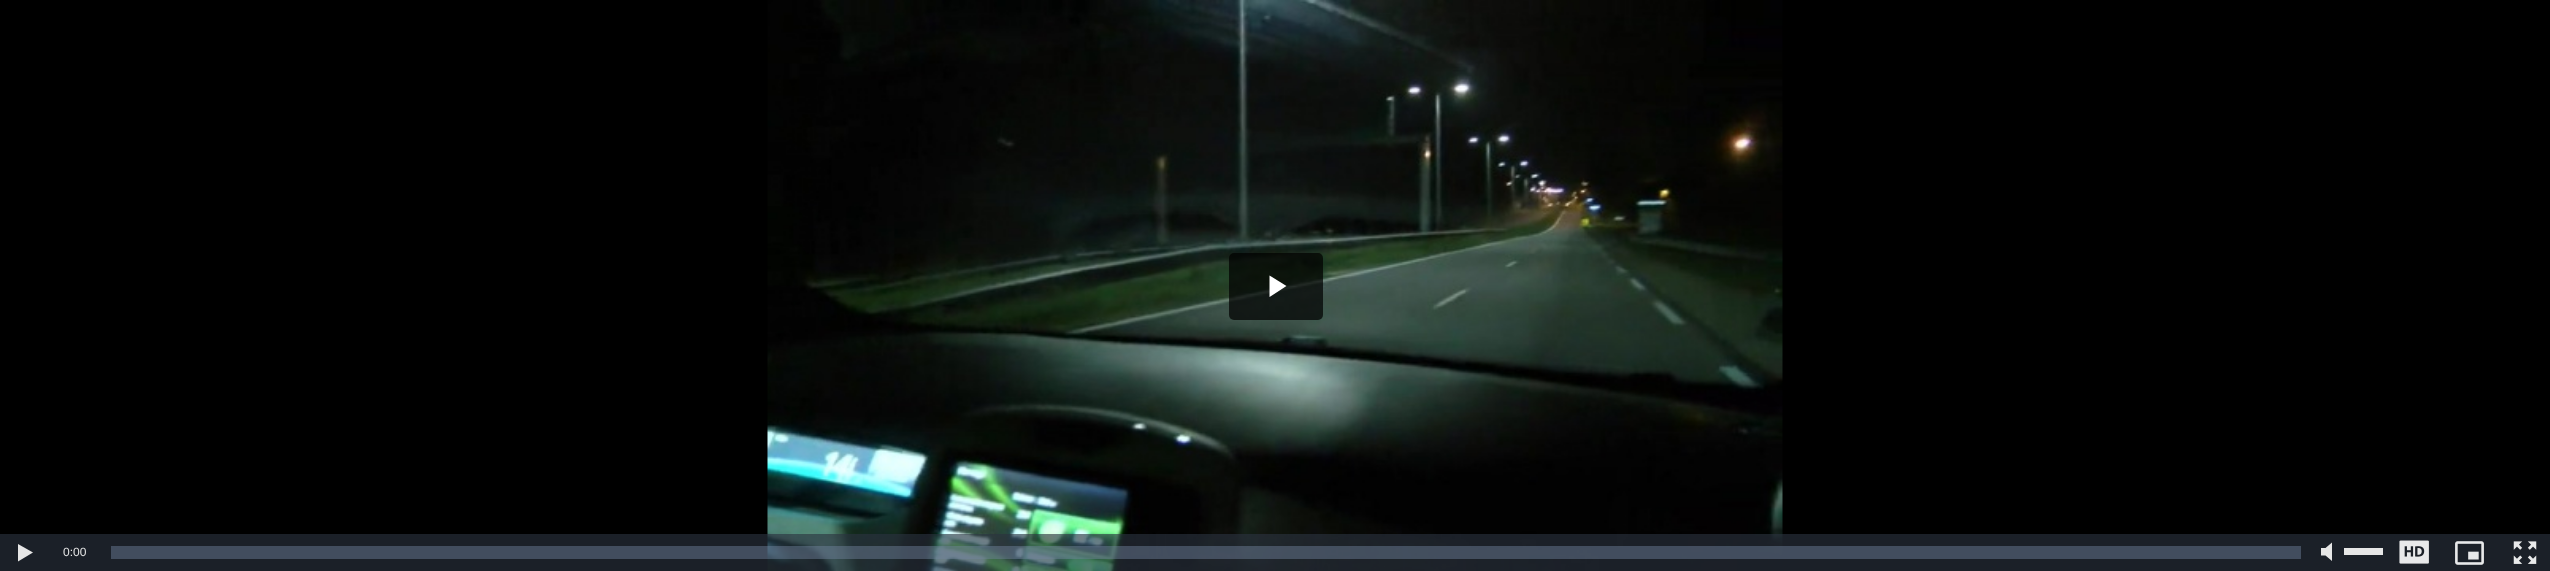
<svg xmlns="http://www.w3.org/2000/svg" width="2550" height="571">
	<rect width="100%" height="100%" fill="#000000" />
	<image x="767" y="0" width="1016" height="571" href="assets/img1.png" />
	<rect x="1229" y="253" width="94" height="67" rx="5" fill="#000000" fill-opacity="0.7" />
	<path d="M1269.5 275.5V297L1286.5 286Z" fill="#FFFFFF" />
	<rect x="0" y="534" width="2550" height="37" fill="#2B333F" fill-opacity="0.63" />
	<path d="M18 552.5V544L33 552.5L18 561.5Z" fill="#E6E6E6" />
	<text x="63" y="556" font-family="Liberation Sans" font-size="12" fill="#E6E6E6">0:00</text>
	<rect x="111" y="546" width="2190" height="13" fill="#73859F" fill-opacity="0.45" />
	<path d="M2332 542.5L2325.5 548H2321V555.5H2325.5L2332 561Z" fill="#E6E6E6" />
	<rect x="2344" y="548" width="39" height="7" fill="#E6E6E6" />
	<image x="2399" y="540" width="30" height="24" href="assets/img2.png" />
	<image x="2455" y="541" width="29" height="24" href="assets/img3.png" />
	<image x="2513" y="541" width="24" height="23" href="assets/img4.png" />
</svg>
